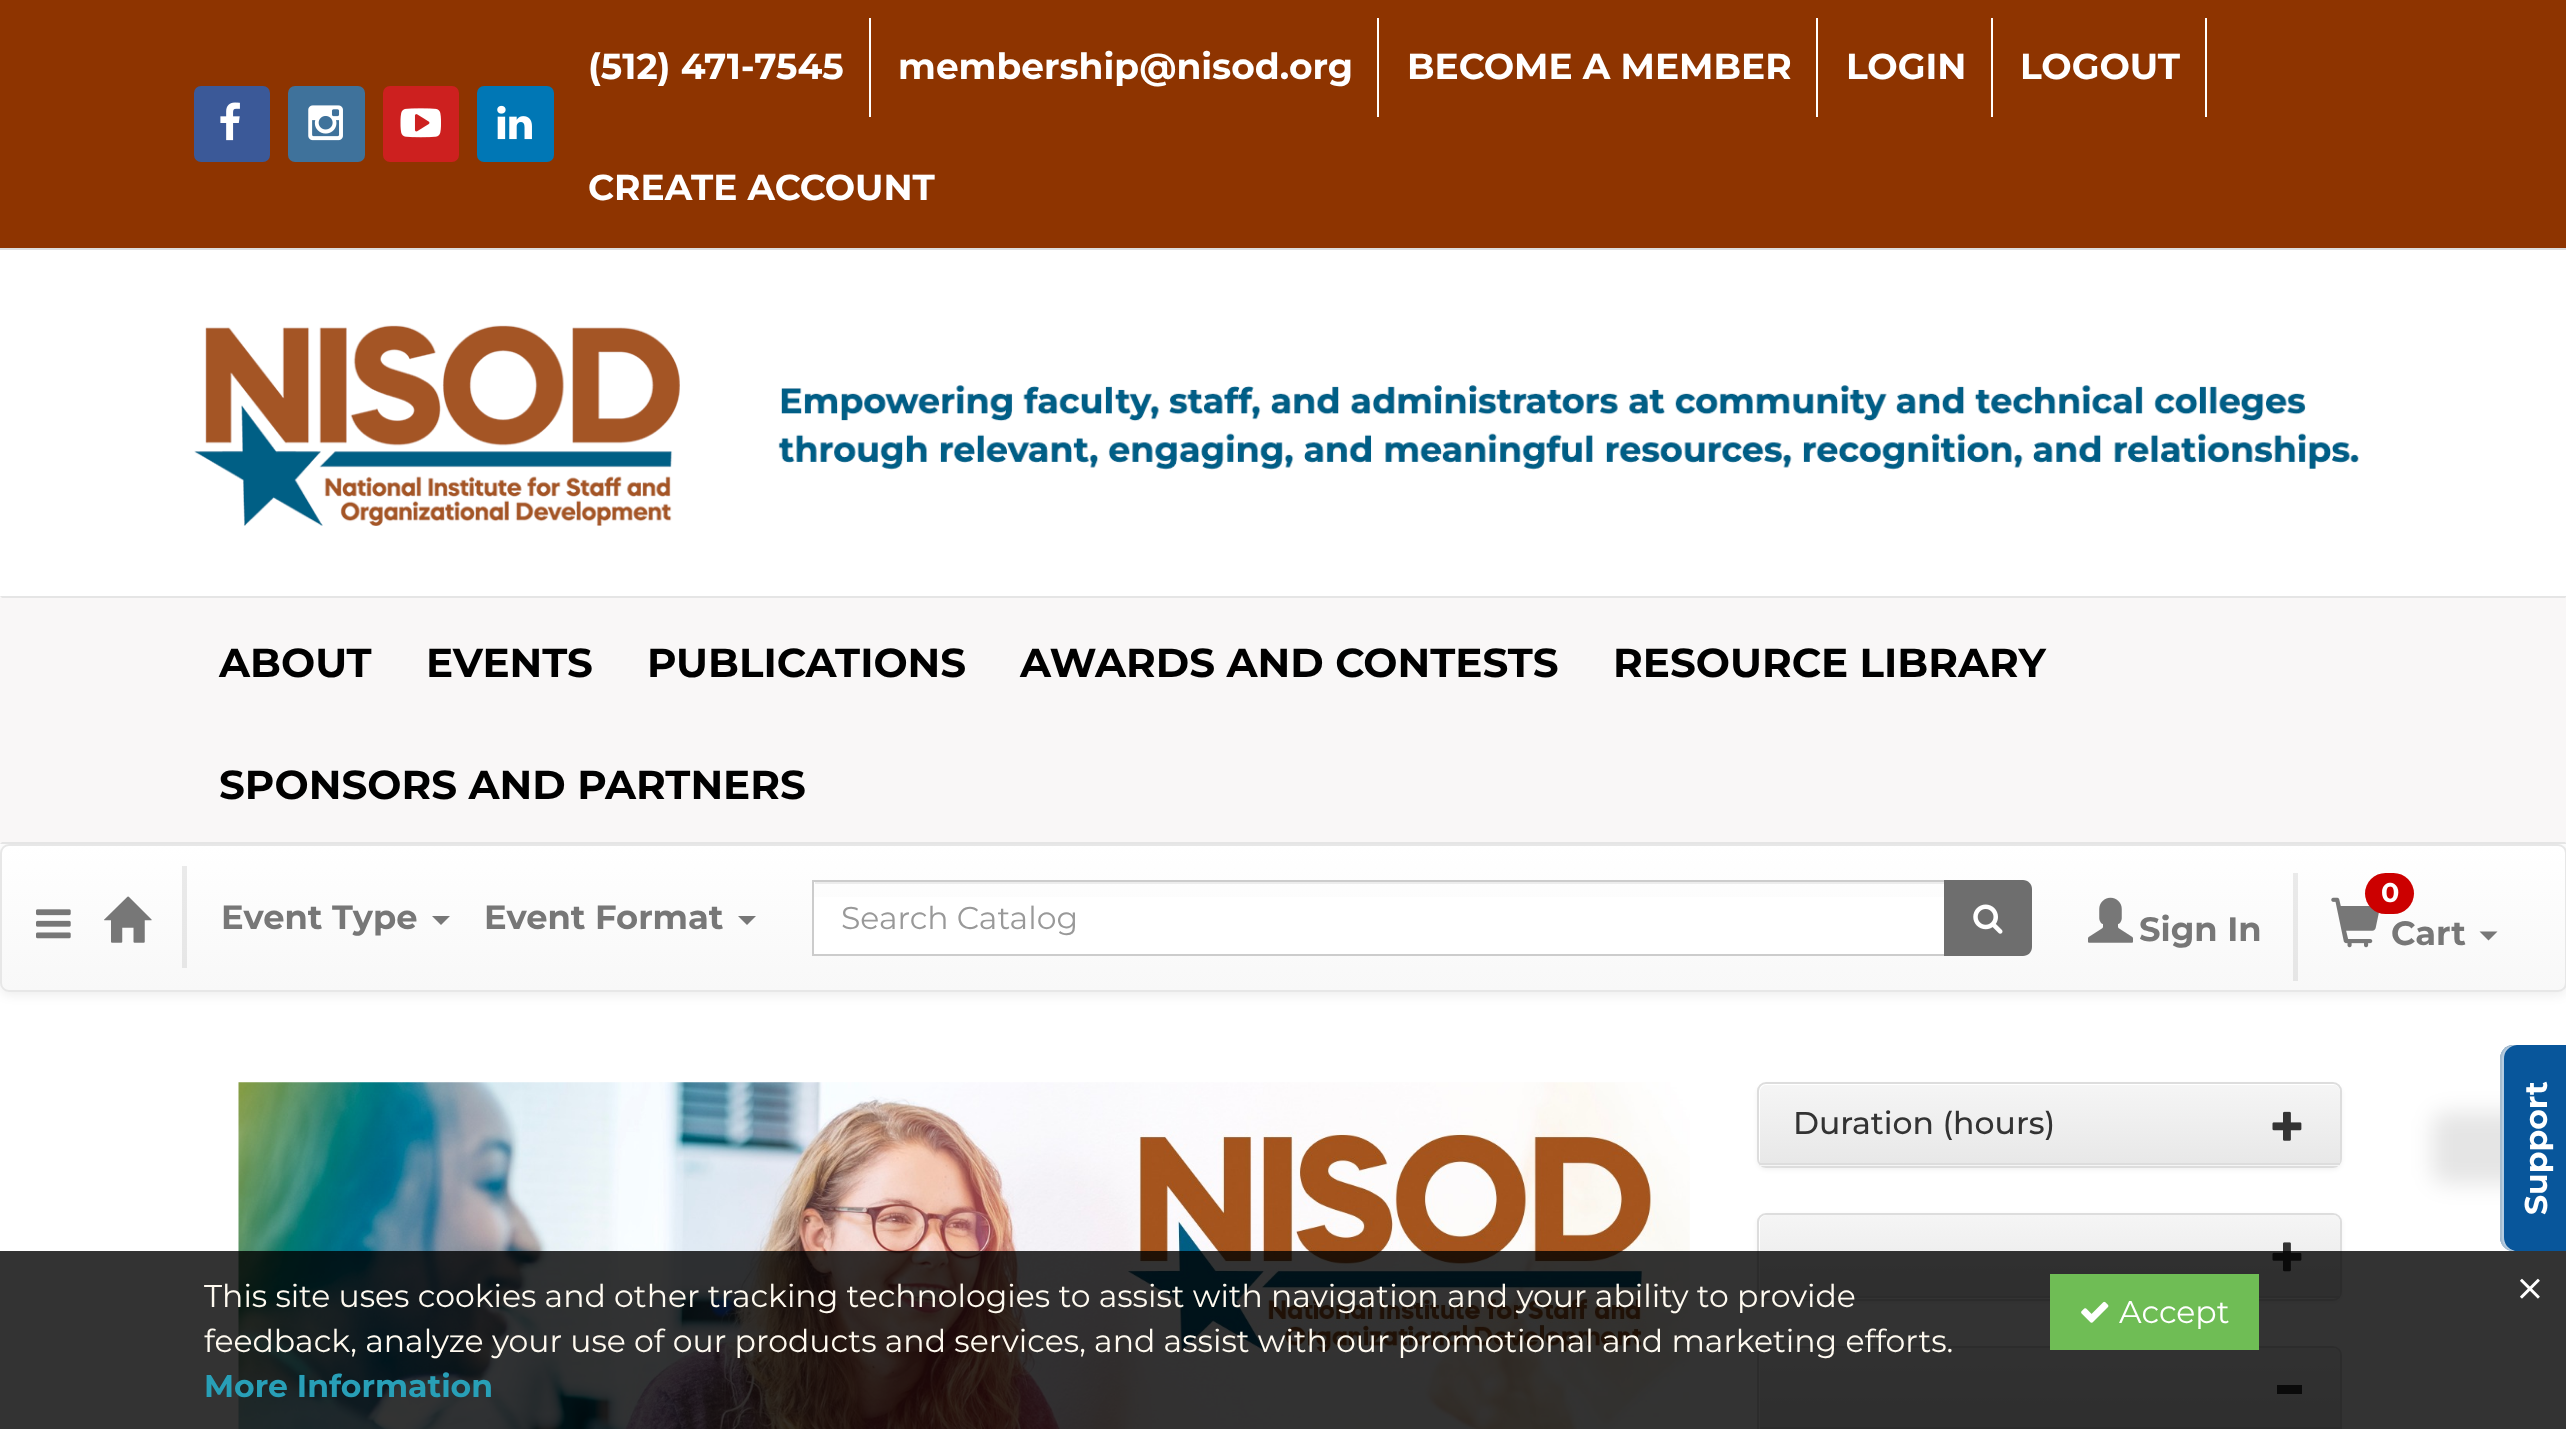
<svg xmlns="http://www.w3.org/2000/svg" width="2566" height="1429">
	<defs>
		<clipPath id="clip1"><rect x="0" y="844" width="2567" height="148" rx="9" /></clipPath>
		<linearGradient id="g1" gradientUnits="userSpaceOnUse" x1="1284" y1="846" x2="1284" y2="990"><stop offset="0" stop-color="#FFFFFF" /><stop offset="1" stop-color="#F8F8F8" /></linearGradient>
		<linearGradient id="g2" gradientUnits="userSpaceOnUse" x1="1284" y1="846" x2="1284" y2="990"><stop offset="0" stop-color="#EBEBEB" /><stop offset="1" stop-color="#E5E5E5" /></linearGradient>
		<linearGradient id="g3" gradientUnits="userSpaceOnUse" x1="2050" y1="1085" x2="2050" y2="1163"><stop offset="0" stop-color="#F5F5F5" /><stop offset="1" stop-color="#E8E8E8" /></linearGradient>
		<linearGradient id="g4" gradientUnits="userSpaceOnUse" x1="2050" y1="1215" x2="2050" y2="1296"><stop offset="0" stop-color="#F5F5F5" /><stop offset="1" stop-color="#E8E8E8" /></linearGradient>
		<linearGradient id="g5" gradientUnits="userSpaceOnUse" x1="2050" y1="1348" x2="2050" y2="1427"><stop offset="0" stop-color="#F5F5F5" /><stop offset="1" stop-color="#E8E8E8" /></linearGradient>
	</defs>
	<rect width="100%" height="100%" fill="#FFFFFF" />
	<rect x="0" y="0" width="2566" height="248" fill="#8E3400" />
	<rect x="0" y="248" width="2566" height="2" fill="#DDDDDD" />
	<rect x="194" y="86" width="76" height="76" rx="7" fill="#3B5998" />
	<image x="220" y="102" width="20" height="39" href="assets/img1.png" />
	<rect x="288" y="86" width="77" height="76" rx="7" fill="#3F729B" />
	<image x="308" y="105" width="35" height="36" href="assets/img2.png" />
	<rect x="383" y="86" width="76" height="76" rx="7" fill="#CD201F" />
	<image x="400" y="108" width="41" height="30" href="assets/img3.png" />
	<rect x="477" y="86" width="77" height="76" rx="7" fill="#0077B5" />
	<image x="497" y="105" width="35" height="35" href="assets/img4.png" />
	<text x="588" y="79" font-family="Montserrat" font-size="36" font-weight="700" fill="#FFFFFF">(512) 471-7545</text>
	<rect x="869" y="18" width="2" height="99" fill="#FFFFFF" />
	<text x="898" y="79" font-family="Montserrat" font-size="36" font-weight="700" fill="#FFFFFF">membership@nisod.org</text>
	<rect x="1377" y="18" width="2" height="99" fill="#FFFFFF" />
	<text x="1407" y="79" font-family="Montserrat" font-size="36" font-weight="700" fill="#FFFFFF">BECOME A MEMBER</text>
	<rect x="1816" y="18" width="2" height="99" fill="#FFFFFF" />
	<text x="1846" y="79" font-family="Montserrat" font-size="36" font-weight="700" fill="#FFFFFF">LOGIN</text>
	<rect x="1991" y="18" width="2" height="99" fill="#FFFFFF" />
	<text x="2020" y="79" font-family="Montserrat" font-size="36" font-weight="700" fill="#FFFFFF">LOGOUT</text>
	<rect x="2205" y="18" width="2" height="99" fill="#FFFFFF" />
	<text x="588" y="200" font-family="Montserrat" font-size="36" font-weight="700" fill="#FFFFFF">CREATE ACCOUNT</text>
	<image x="194" y="325" width="2165" height="201" href="assets/img5.png" />
	<rect x="0" y="846" width="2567" height="149" rx="9" fill="#000000" fill-opacity="0.07" filter="blur(5.5px)" />
	<rect x="0" y="596" width="2566" height="248" fill="#F9F7F7" />
	<path d="M0 596H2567L2565 598H2Z" fill="#E5E5E5" />
	<path d="M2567 844H0L2 842H2565Z" fill="#E5E5E5" />
	<g font-family="Montserrat" font-size="40.5" font-weight="700" fill="#000000">
		<text x="219" y="677">ABOUT</text>
		<text x="426" y="677">EVENTS</text>
		<text x="647" y="677">PUBLICATIONS</text>
		<text x="1020" y="677">AWARDS AND CONTESTS</text>
		<text x="1613" y="677">RESOURCE LIBRARY</text>
		<text x="219" y="799">SPONSORS AND PARTNERS</text>
	</g>
	<g clip-path="url(#clip1)">
		<rect x="0" y="846" width="2566" height="144" fill="url(#g1)" />
	</g>
	<rect x="2293" y="873" width="5" height="108" fill="url(#g2)" />
	<rect x="182" y="866" width="5" height="102" fill="url(#g2)" />
	<rect x="1" y="845" width="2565" height="146" rx="8" fill="none" stroke="#E7E7E7" stroke-width="2" />
	<image x="36" y="909" width="35" height="30" href="assets/img6.png" />
	<image x="104" y="896" width="48" height="47" href="assets/img7.png" />
	<text x="221" y="929" font-family="Montserrat" font-size="33.75" font-weight="700" fill="#777777">Event Type</text>
	<path d="M432 916H450L441 925Z" fill="#777777" />
	<text x="484" y="929" font-family="Montserrat" font-size="33.75" font-weight="700" fill="#777777">Event Format</text>
	<path d="M738 916H756L747 925Z" fill="#777777" />
	<rect x="814" y="897" width="1130" height="57" fill="#FFFFFF" />
	<rect x="815" y="882" width="1129" height="2" fill="#ECECEC" />
	<rect x="813" y="881" width="1132" height="74" fill="none" stroke="#CCCCCC" stroke-width="2" />
	<text x="841" y="929" font-family="Montserrat" font-size="31.5" fill="#999999">Search Catalog</text>
	<path d="M1944 880H2023C2028 880 2032 884 2032 889V947C2032 952 2028 956 2023 956H1944Z" fill="#6E6E6E" />
	<image x="1973" y="904" width="30" height="30" href="assets/img8.png" />
	<image x="2088" y="897" width="45" height="46" href="assets/img9.png" />
	<text x="2139" y="941" font-family="Montserrat" font-size="33.75" font-weight="700" fill="#777777">Sign In</text>
	<image x="2331" y="897" width="48" height="51" href="assets/img10.png" />
	<rect x="2365" y="873" width="49" height="41" rx="20.5" fill="#CC0000" />
	<text x="2381" y="902" font-family="Montserrat" font-size="27" font-weight="700" fill="#FFFFFF">0</text>
	<text x="2391" y="945" font-family="Montserrat" font-size="33.75" font-weight="700" fill="#777777">Cart</text>
	<path d="M2479.5 931.5H2497.5L2488.5 940.5Z" fill="#777777" />
	<image x="238" y="1082" width="1452" height="347" href="assets/img11.png" />
	<rect x="1757" y="1085" width="585" height="85" rx="9" fill="#000000" fill-opacity="0.05" filter="blur(2px)" />
	<rect x="1758" y="1083" width="583" height="84" rx="8" fill="#FFFFFF" stroke="#DDDDDD" stroke-width="2" />
	<path d="M1767 1085H2333C2337 1085 2340 1088 2340 1092V1166H1760V1092C1760 1088 1763 1085 1767 1085Z" fill="#F5F5F5" />
	<path d="M1767 1085H2333C2337 1085 2340 1088 2340 1092V1163H1760V1092C1760 1088 1763 1085 1767 1085Z" fill="url(#g3)" />
	<rect x="1760" y="1163" width="580" height="2" fill="#DDDDDD" />
	<text x="1793" y="1134" font-family="Montserrat" font-size="31.5" font-weight="500" fill="#333333">Duration (hours)</text>
	<image x="2272" y="1111" width="30" height="30" href="assets/img12.png" />
	<rect x="1757" y="1215" width="585" height="88" rx="9" fill="#000000" fill-opacity="0.05" filter="blur(2px)" />
	<rect x="1758" y="1214" width="583" height="86" rx="8" fill="#FFFFFF" stroke="#DDDDDD" stroke-width="2" />
	<path d="M1767 1215H2333C2337 1215 2340 1218 2340 1222V1296H1760V1222C1760 1218 1763 1215 1767 1215Z" fill="url(#g4)" />
	<rect x="1760" y="1296" width="580" height="2" fill="#DDDDDD" />
	<image x="2272" y="1242" width="30" height="30" href="assets/img13.png" />
	<rect x="1758" y="1347" width="583" height="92" rx="8" fill="none" stroke="#DDDDDD" stroke-width="2" />
	<path d="M1767 1348H2333C2337 1348 2340 1351 2340 1355V1427H1760V1355C1760 1351 1763 1348 1767 1348Z" fill="url(#g5)" />
	<rect x="1760" y="1427" width="580" height="2" fill="#DDDDDD" />
	<rect x="2277" y="1385" width="25" height="9" fill="#333333" />
	<rect x="2432" y="1112" width="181" height="72" rx="14" fill="#000000" fill-opacity="0.1" filter="blur(11px)" />
	<path d="M2500 1237V1059C2500 1051 2506 1045 2513 1045H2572V1251H2513C2506 1251 2500 1245 2500 1237Z" fill="#08569B" />
	<path d="M2504 1237C2504 1244 2508 1249 2515 1251H2513C2506 1251 2500 1245 2500 1237V1059C2500 1051 2506 1045 2513 1045H2517C2509 1046 2504 1051 2504 1059Z" fill="#FFFFFF" fill-opacity="0.7" />
	<path d="M2502 1237C2502 1244 2506 1249 2513 1251C2505 1250 2500 1244 2500 1237V1059C2500 1051 2506 1045 2513 1045H2515C2507 1046 2502 1051 2502 1059Z" fill="#000000" fill-opacity="0.08" />
	<text x="2547" y="1215" transform="rotate(-90 2547 1215)" font-family="Montserrat" font-size="31.5" font-weight="700" fill="#FFFFFF">Support</text>
	<rect x="0" y="1251" width="2566" height="178" fill="#000000" fill-opacity="0.8" />
	<g font-family="Montserrat" font-size="31.5" fill="#FFFAF0">
		<text x="204" y="1307">This site uses cookies and other tracking technologies to assist with navigation and your ability to provide</text>
		<text x="204" y="1352">feedback, analyze your use of our products and services, and assist with our promotional and marketing efforts.</text>
	</g>
	<text x="204" y="1397" font-family="Montserrat" font-size="31.5" font-weight="700" fill="#289FB7">More Information</text>
	<rect x="2050" y="1274" width="209" height="76" fill="#6FBD55" />
	<image x="2081" y="1301" width="28" height="22" href="assets/img14.png" />
	<text x="2119" y="1323" font-family="Montserrat" font-size="31.5" fill="#FFFFFF">Accept</text>
	<image x="2520" y="1278" width="20" height="21" href="assets/img15.png" />
</svg>
